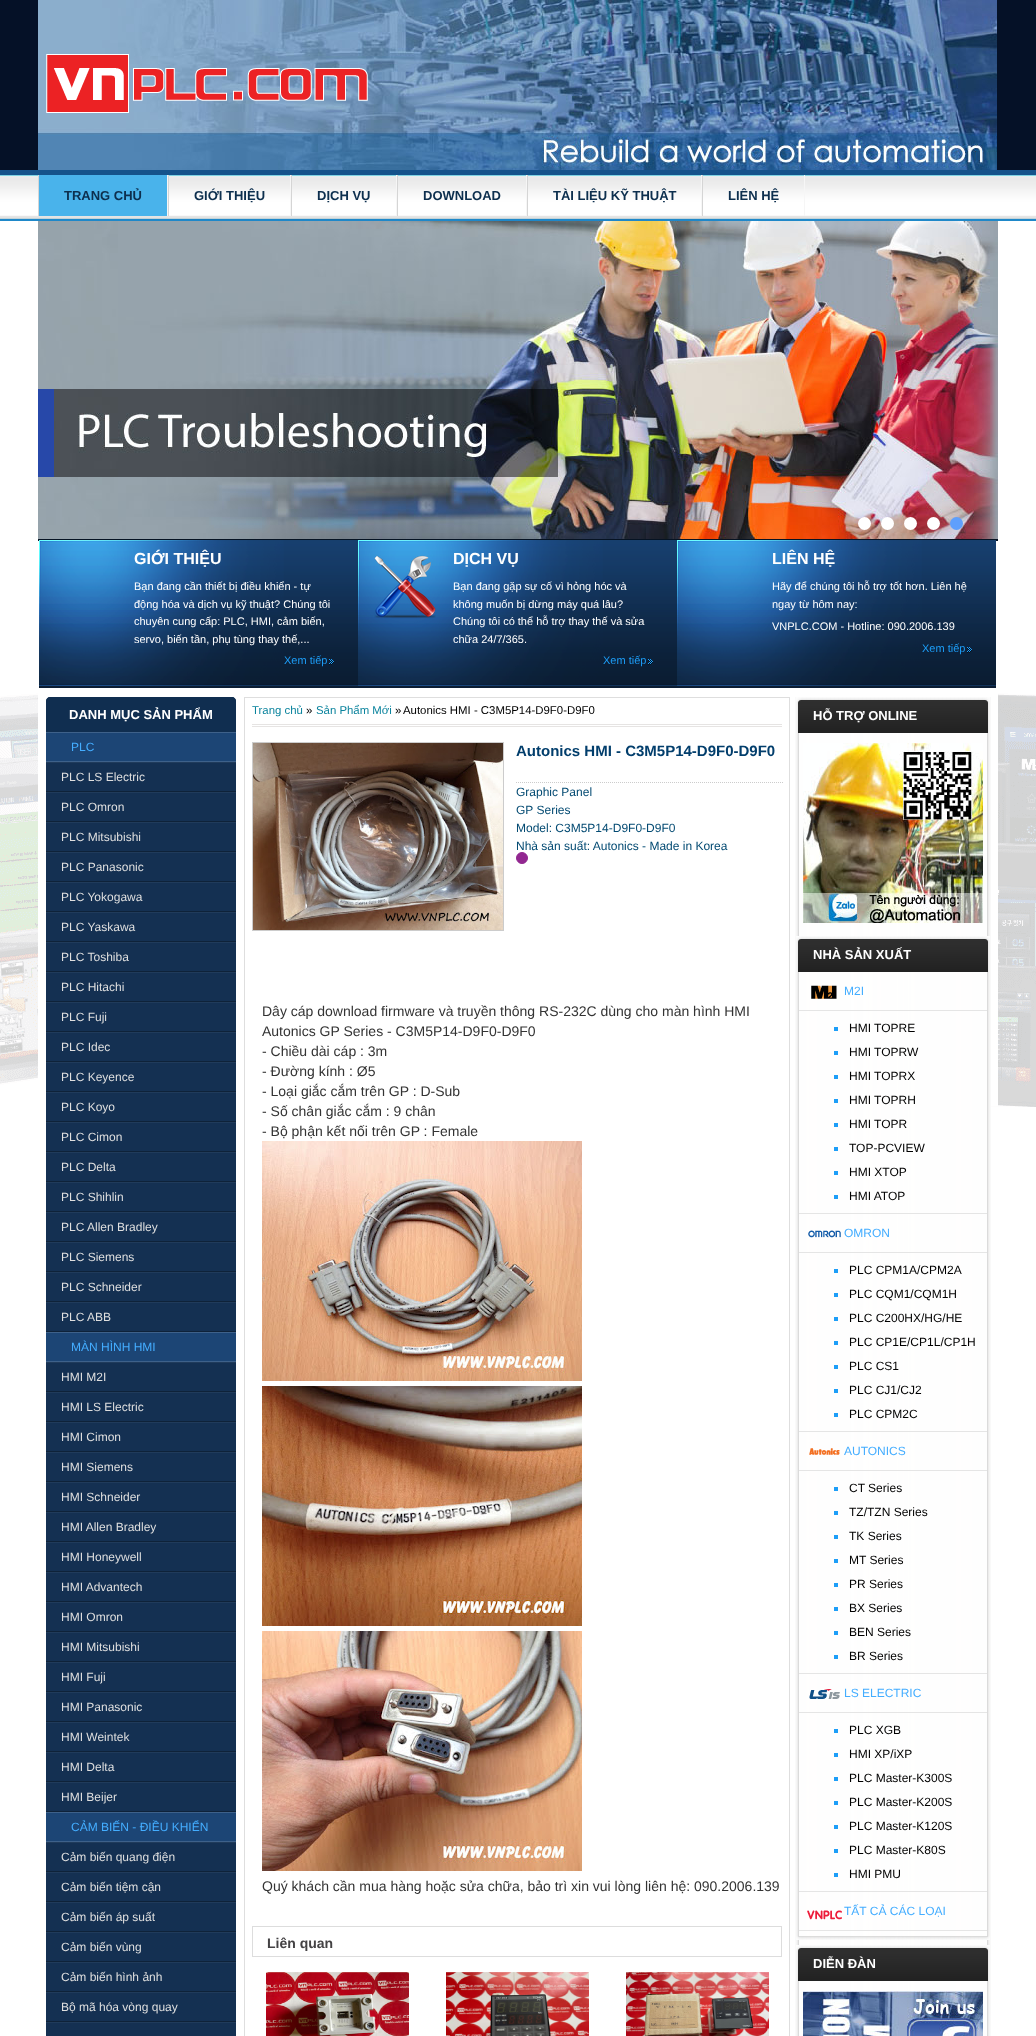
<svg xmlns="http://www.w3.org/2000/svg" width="1036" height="2036">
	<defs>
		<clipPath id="clip1"><rect x="504" y="742" width="280" height="252" /></clipPath>
	</defs>
	<rect width="100%" height="100%" fill="#FFFFFF" />
	<rect x="0" y="0" width="1036" height="170" fill="#051127" />
	<rect x="0" y="170" width="1036" height="5" fill="#15538B" />
	<image x="38" y="0" width="959" height="170" href="assets/img1.png" />
	<image x="46" y="54" width="322" height="59" href="assets/img2.png" />
	<rect x="0" y="219" width="1036" height="2" fill="#1F88C9" />
	<image x="0" y="175" width="1036" height="44" href="assets/img3.png" />
	<rect x="39" y="175" width="128" height="41" fill="#49B3EB" />
	<rect x="167" y="175" width="1" height="41" fill="#F6F6F6" />
	<rect x="38" y="175" width="1" height="41" fill="#D5D5D5" />
	<text x="64" y="200" font-family="Liberation Sans" font-size="13" font-weight="700" fill="#0D2F4E">TRANG CHỦ</text>
	<rect x="290" y="175" width="1" height="41" fill="#F6F6F6" />
	<rect x="168" y="175" width="1" height="41" fill="#D5D5D5" />
	<text x="194" y="200" font-family="Liberation Sans" font-size="13" font-weight="700" fill="#0D2F4E">GIỚI THIỆU</text>
	<rect x="396" y="175" width="1" height="41" fill="#F6F6F6" />
	<rect x="291" y="175" width="1" height="41" fill="#D5D5D5" />
	<text x="317" y="200" font-family="Liberation Sans" font-size="13" font-weight="700" fill="#0D2F4E">DỊCH VỤ</text>
	<rect x="526" y="175" width="1" height="41" fill="#F6F6F6" />
	<rect x="397" y="175" width="1" height="41" fill="#D5D5D5" />
	<text x="423" y="200" font-family="Liberation Sans" font-size="13" font-weight="700" fill="#0D2F4E">DOWNLOAD</text>
	<rect x="701" y="175" width="1" height="41" fill="#F6F6F6" />
	<rect x="527" y="175" width="1" height="41" fill="#D5D5D5" />
	<text x="553" y="200" font-family="Liberation Sans" font-size="13" font-weight="700" fill="#0D2F4E">TÀI LIỆU KỸ THUẬT</text>
	<rect x="804" y="175" width="1" height="41" fill="#F6F6F6" />
	<rect x="702" y="175" width="1" height="41" fill="#D5D5D5" />
	<text x="728" y="200" font-family="Liberation Sans" font-size="13" font-weight="700" fill="#0D2F4E">LIÊN HỆ</text>
	<image x="38" y="221" width="960" height="318" href="assets/img4.png" />
	<circle cx="864.5" cy="523.5" r="6.5" fill="#FFFFFF" />
	<circle cx="887.5" cy="523.5" r="6.5" fill="#FFFFFF" />
	<circle cx="910.5" cy="523.5" r="6.5" fill="#FFFFFF" />
	<circle cx="933.5" cy="523.5" r="6.5" fill="#FFFFFF" />
	<circle cx="956.5" cy="523.5" r="6.5" fill="#5F9FFC" />
	<rect x="38" y="539" width="960" height="2" fill="#061323" />
	<rect x="39" y="686" width="957" height="2" fill="#0B1D33" />
	<image x="39" y="540" width="319" height="146" href="assets/img5.png" />
	<text x="134" y="564" font-family="Liberation Sans" font-size="16" font-weight="700" fill="#FFFFFF">GIỚI THIỆU</text>
	<g font-family="Liberation Sans" font-size="11" fill="#FFFFFF">
		<text x="134" y="590">Bạn đang cần thiết bị điều khiển - tự</text>
		<text x="134" y="608">động hóa và dịch vụ kỹ thuật? Chúng tôi</text>
		<text x="134" y="625">chuyên cung cấp: PLC, HMI, cảm biến,</text>
		<text x="134" y="643">servo, biến tần, phụ tùng thay thế,...</text>
	</g>
	<image x="329" y="659" width="5" height="6" href="assets/img6.png" />
	<text x="284" y="664" font-family="Liberation Sans" font-size="11" fill="#1D9EF8">Xem tiếp</text>
	<image x="358" y="540" width="319" height="146" href="assets/img5.png" />
	<image x="374" y="555" width="62" height="64" href="assets/img7.png" />
	<text x="453" y="564" font-family="Liberation Sans" font-size="16" font-weight="700" fill="#FFFFFF">DỊCH VỤ</text>
	<g font-family="Liberation Sans" font-size="11" fill="#FFFFFF">
		<text x="453" y="590">Bạn đang gặp sự cố vì hỏng hóc và</text>
		<text x="453" y="608">không muốn bị dừng máy quá lâu?</text>
		<text x="453" y="625">Chúng tôi có thể hỗ trợ thay thế và sửa</text>
		<text x="453" y="643">chữa 24/7/365.</text>
	</g>
	<image x="648" y="659" width="5" height="6" href="assets/img6.png" />
	<text x="603" y="664" font-family="Liberation Sans" font-size="11" fill="#1D9EF8">Xem tiếp</text>
	<image x="677" y="540" width="319" height="146" href="assets/img5.png" />
	<text x="772" y="564" font-family="Liberation Sans" font-size="16" font-weight="700" fill="#FFFFFF">LIÊN HỆ</text>
	<g font-family="Liberation Sans" font-size="11" fill="#FFFFFF">
		<text x="772" y="590">Hãy để chúng tôi hỗ trợ tốt hơn. Liên hệ</text>
		<text x="772" y="608">ngay từ hôm nay:</text>
		<text x="772" y="630">VNPLC.COM - Hotline: 090.2006.139</text>
	</g>
	<image x="967" y="647" width="5" height="6" href="assets/img6.png" />
	<text x="922" y="652" font-family="Liberation Sans" font-size="11" fill="#1D9EF8">Xem tiếp</text>
	<image x="0" y="693" width="1036" height="414" href="assets/img8.png" />
	<rect x="38" y="693" width="960" height="413" fill="#FFFFFF" />
	<path d="M50 697H232C234 697 236 699 236 701V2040H46V701C46 699 48 697 50 697Z" fill="#143052" />
	<path d="M50 697H232C234 697 236 699 236 701V732H46V701C46 699 48 697 50 697Z" fill="#102E50" />
	<text x="69" y="719" font-family="Liberation Sans" font-size="13" font-weight="700" fill="#FFFFFF">DANH MỤC SẢN PHẨM</text>
	<rect x="46" y="733" width="190" height="28" fill="#1C4575" />
	<rect x="46" y="732" width="190" height="1" fill="#3E618A" />
	<rect x="46" y="761" width="190" height="1" fill="#3E618A" />
	<text x="71" y="751" font-family="Liberation Sans" font-size="12" fill="#44ADFF">PLC</text>
	<rect x="46" y="762" width="190" height="1" fill="#203B5B" />
	<rect x="46" y="791" width="190" height="1" fill="#0E2239" />
	<text x="61" y="781" font-family="Liberation Sans" font-size="12" fill="#DFDFDF">PLC LS Electric</text>
	<rect x="46" y="792" width="190" height="1" fill="#203B5B" />
	<rect x="46" y="821" width="190" height="1" fill="#0E2239" />
	<text x="61" y="811" font-family="Liberation Sans" font-size="12" fill="#DFDFDF">PLC Omron</text>
	<rect x="46" y="822" width="190" height="1" fill="#203B5B" />
	<rect x="46" y="851" width="190" height="1" fill="#0E2239" />
	<text x="61" y="841" font-family="Liberation Sans" font-size="12" fill="#DFDFDF">PLC Mitsubishi</text>
	<rect x="46" y="852" width="190" height="1" fill="#203B5B" />
	<rect x="46" y="881" width="190" height="1" fill="#0E2239" />
	<text x="61" y="871" font-family="Liberation Sans" font-size="12" fill="#DFDFDF">PLC Panasonic</text>
	<rect x="46" y="882" width="190" height="1" fill="#203B5B" />
	<rect x="46" y="911" width="190" height="1" fill="#0E2239" />
	<text x="61" y="901" font-family="Liberation Sans" font-size="12" fill="#DFDFDF">PLC Yokogawa</text>
	<rect x="46" y="912" width="190" height="1" fill="#203B5B" />
	<rect x="46" y="941" width="190" height="1" fill="#0E2239" />
	<text x="61" y="931" font-family="Liberation Sans" font-size="12" fill="#DFDFDF">PLC Yaskawa</text>
	<rect x="46" y="942" width="190" height="1" fill="#203B5B" />
	<rect x="46" y="971" width="190" height="1" fill="#0E2239" />
	<text x="61" y="961" font-family="Liberation Sans" font-size="12" fill="#DFDFDF">PLC Toshiba</text>
	<rect x="46" y="972" width="190" height="1" fill="#203B5B" />
	<rect x="46" y="1001" width="190" height="1" fill="#0E2239" />
	<text x="61" y="991" font-family="Liberation Sans" font-size="12" fill="#DFDFDF">PLC Hitachi</text>
	<rect x="46" y="1002" width="190" height="1" fill="#203B5B" />
	<rect x="46" y="1031" width="190" height="1" fill="#0E2239" />
	<text x="61" y="1021" font-family="Liberation Sans" font-size="12" fill="#DFDFDF">PLC Fuji</text>
	<rect x="46" y="1032" width="190" height="1" fill="#203B5B" />
	<rect x="46" y="1061" width="190" height="1" fill="#0E2239" />
	<text x="61" y="1051" font-family="Liberation Sans" font-size="12" fill="#DFDFDF">PLC Idec</text>
	<rect x="46" y="1062" width="190" height="1" fill="#203B5B" />
	<rect x="46" y="1091" width="190" height="1" fill="#0E2239" />
	<text x="61" y="1081" font-family="Liberation Sans" font-size="12" fill="#DFDFDF">PLC Keyence</text>
	<rect x="46" y="1092" width="190" height="1" fill="#203B5B" />
	<rect x="46" y="1121" width="190" height="1" fill="#0E2239" />
	<text x="61" y="1111" font-family="Liberation Sans" font-size="12" fill="#DFDFDF">PLC Koyo</text>
	<rect x="46" y="1122" width="190" height="1" fill="#203B5B" />
	<rect x="46" y="1151" width="190" height="1" fill="#0E2239" />
	<text x="61" y="1141" font-family="Liberation Sans" font-size="12" fill="#DFDFDF">PLC Cimon</text>
	<rect x="46" y="1152" width="190" height="1" fill="#203B5B" />
	<rect x="46" y="1181" width="190" height="1" fill="#0E2239" />
	<text x="61" y="1171" font-family="Liberation Sans" font-size="12" fill="#DFDFDF">PLC Delta</text>
	<rect x="46" y="1182" width="190" height="1" fill="#203B5B" />
	<rect x="46" y="1211" width="190" height="1" fill="#0E2239" />
	<text x="61" y="1201" font-family="Liberation Sans" font-size="12" fill="#DFDFDF">PLC Shihlin</text>
	<rect x="46" y="1212" width="190" height="1" fill="#203B5B" />
	<rect x="46" y="1241" width="190" height="1" fill="#0E2239" />
	<text x="61" y="1231" font-family="Liberation Sans" font-size="12" fill="#DFDFDF">PLC Allen Bradley</text>
	<rect x="46" y="1242" width="190" height="1" fill="#203B5B" />
	<rect x="46" y="1271" width="190" height="1" fill="#0E2239" />
	<text x="61" y="1261" font-family="Liberation Sans" font-size="12" fill="#DFDFDF">PLC Siemens</text>
	<rect x="46" y="1272" width="190" height="1" fill="#203B5B" />
	<rect x="46" y="1301" width="190" height="1" fill="#0E2239" />
	<text x="61" y="1291" font-family="Liberation Sans" font-size="12" fill="#DFDFDF">PLC Schneider</text>
	<rect x="46" y="1302" width="190" height="1" fill="#203B5B" />
	<rect x="46" y="1331" width="190" height="1" fill="#0E2239" />
	<text x="61" y="1321" font-family="Liberation Sans" font-size="12" fill="#DFDFDF">PLC ABB</text>
	<rect x="46" y="1333" width="190" height="28" fill="#1C4575" />
	<rect x="46" y="1332" width="190" height="1" fill="#3E618A" />
	<rect x="46" y="1361" width="190" height="1" fill="#3E618A" />
	<text x="71" y="1351" font-family="Liberation Sans" font-size="12" fill="#44ADFF">MÀN HÌNH HMI</text>
	<rect x="46" y="1362" width="190" height="1" fill="#203B5B" />
	<rect x="46" y="1391" width="190" height="1" fill="#0E2239" />
	<text x="61" y="1381" font-family="Liberation Sans" font-size="12" fill="#DFDFDF">HMI M2I</text>
	<rect x="46" y="1392" width="190" height="1" fill="#203B5B" />
	<rect x="46" y="1421" width="190" height="1" fill="#0E2239" />
	<text x="61" y="1411" font-family="Liberation Sans" font-size="12" fill="#DFDFDF">HMI LS Electric</text>
	<rect x="46" y="1422" width="190" height="1" fill="#203B5B" />
	<rect x="46" y="1451" width="190" height="1" fill="#0E2239" />
	<text x="61" y="1441" font-family="Liberation Sans" font-size="12" fill="#DFDFDF">HMI Cimon</text>
	<rect x="46" y="1452" width="190" height="1" fill="#203B5B" />
	<rect x="46" y="1481" width="190" height="1" fill="#0E2239" />
	<text x="61" y="1471" font-family="Liberation Sans" font-size="12" fill="#DFDFDF">HMI Siemens</text>
	<rect x="46" y="1482" width="190" height="1" fill="#203B5B" />
	<rect x="46" y="1511" width="190" height="1" fill="#0E2239" />
	<text x="61" y="1501" font-family="Liberation Sans" font-size="12" fill="#DFDFDF">HMI Schneider</text>
	<rect x="46" y="1512" width="190" height="1" fill="#203B5B" />
	<rect x="46" y="1541" width="190" height="1" fill="#0E2239" />
	<text x="61" y="1531" font-family="Liberation Sans" font-size="12" fill="#DFDFDF">HMI Allen Bradley</text>
	<rect x="46" y="1542" width="190" height="1" fill="#203B5B" />
	<rect x="46" y="1571" width="190" height="1" fill="#0E2239" />
	<text x="61" y="1561" font-family="Liberation Sans" font-size="12" fill="#DFDFDF">HMI Honeywell</text>
	<rect x="46" y="1572" width="190" height="1" fill="#203B5B" />
	<rect x="46" y="1601" width="190" height="1" fill="#0E2239" />
	<text x="61" y="1591" font-family="Liberation Sans" font-size="12" fill="#DFDFDF">HMI Advantech</text>
	<rect x="46" y="1602" width="190" height="1" fill="#203B5B" />
	<rect x="46" y="1631" width="190" height="1" fill="#0E2239" />
	<text x="61" y="1621" font-family="Liberation Sans" font-size="12" fill="#DFDFDF">HMI Omron</text>
	<rect x="46" y="1632" width="190" height="1" fill="#203B5B" />
	<rect x="46" y="1661" width="190" height="1" fill="#0E2239" />
	<text x="61" y="1651" font-family="Liberation Sans" font-size="12" fill="#DFDFDF">HMI Mitsubishi</text>
	<rect x="46" y="1662" width="190" height="1" fill="#203B5B" />
	<rect x="46" y="1691" width="190" height="1" fill="#0E2239" />
	<text x="61" y="1681" font-family="Liberation Sans" font-size="12" fill="#DFDFDF">HMI Fuji</text>
	<rect x="46" y="1692" width="190" height="1" fill="#203B5B" />
	<rect x="46" y="1721" width="190" height="1" fill="#0E2239" />
	<text x="61" y="1711" font-family="Liberation Sans" font-size="12" fill="#DFDFDF">HMI Panasonic</text>
	<rect x="46" y="1722" width="190" height="1" fill="#203B5B" />
	<rect x="46" y="1751" width="190" height="1" fill="#0E2239" />
	<text x="61" y="1741" font-family="Liberation Sans" font-size="12" fill="#DFDFDF">HMI Weintek</text>
	<rect x="46" y="1752" width="190" height="1" fill="#203B5B" />
	<rect x="46" y="1781" width="190" height="1" fill="#0E2239" />
	<text x="61" y="1771" font-family="Liberation Sans" font-size="12" fill="#DFDFDF">HMI Delta</text>
	<rect x="46" y="1782" width="190" height="1" fill="#203B5B" />
	<rect x="46" y="1811" width="190" height="1" fill="#0E2239" />
	<text x="61" y="1801" font-family="Liberation Sans" font-size="12" fill="#DFDFDF">HMI Beijer</text>
	<rect x="46" y="1813" width="190" height="28" fill="#1C4575" />
	<rect x="46" y="1812" width="190" height="1" fill="#3E618A" />
	<rect x="46" y="1841" width="190" height="1" fill="#3E618A" />
	<text x="71" y="1831" font-family="Liberation Sans" font-size="12" fill="#44ADFF">CẢM BIẾN - ĐIỀU KHIỂN</text>
	<rect x="46" y="1842" width="190" height="1" fill="#203B5B" />
	<rect x="46" y="1871" width="190" height="1" fill="#0E2239" />
	<text x="61" y="1861" font-family="Liberation Sans" font-size="12" fill="#DFDFDF">Cảm biến quang điện</text>
	<rect x="46" y="1872" width="190" height="1" fill="#203B5B" />
	<rect x="46" y="1901" width="190" height="1" fill="#0E2239" />
	<text x="61" y="1891" font-family="Liberation Sans" font-size="12" fill="#DFDFDF">Cảm biến tiệm cận</text>
	<rect x="46" y="1902" width="190" height="1" fill="#203B5B" />
	<rect x="46" y="1931" width="190" height="1" fill="#0E2239" />
	<text x="61" y="1921" font-family="Liberation Sans" font-size="12" fill="#DFDFDF">Cảm biến áp suất</text>
	<rect x="46" y="1932" width="190" height="1" fill="#203B5B" />
	<rect x="46" y="1961" width="190" height="1" fill="#0E2239" />
	<text x="61" y="1951" font-family="Liberation Sans" font-size="12" fill="#DFDFDF">Cảm biến vùng</text>
	<rect x="46" y="1962" width="190" height="1" fill="#203B5B" />
	<rect x="46" y="1991" width="190" height="1" fill="#0E2239" />
	<text x="61" y="1981" font-family="Liberation Sans" font-size="12" fill="#DFDFDF">Cảm biến hình ảnh</text>
	<rect x="46" y="1992" width="190" height="1" fill="#203B5B" />
	<rect x="46" y="2021" width="190" height="1" fill="#0E2239" />
	<text x="61" y="2011" font-family="Liberation Sans" font-size="12" fill="#DFDFDF">Bộ mã hóa vòng quay</text>
	<rect x="46" y="2022" width="190" height="1" fill="#203B5B" />
	<rect x="244.5" y="697.5" width="545" height="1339" fill="none" stroke="#DEDEDE" />
	<rect x="252" y="724" width="530" height="1" fill="#E6E4E3" />
	<rect x="252" y="726" width="530" height="1" fill="#E6E4E3" />
	<text x="252" y="714" font-family="Liberation Sans" font-size="11.4" fill="#0A839D">Trang chủ</text>
	<text x="306" y="714" font-family="Liberation Sans" font-size="11.4" fill="#000000">»</text>
	<text x="316" y="714" font-family="Liberation Sans" font-size="11.4" fill="#0A839D">Sản Phẩm Mới</text>
	<g font-family="Liberation Sans" font-size="11.4" fill="#000000">
		<text x="395" y="714">»</text>
		<text x="403" y="714">Autonics HMI - C3M5P14-D9F0-D9F0</text>
	</g>
	<rect x="252.5" y="742.5" width="251" height="188" fill="none" stroke="#CCCCCC" />
	<image x="253" y="743" width="250" height="187" href="assets/img9.png" />
	<g clip-path="url(#clip1)">
		<path d="M516 782.5H841" fill="none" stroke="#CCCCCC" stroke-dasharray="1 1" />
	</g>
	<text x="516" y="756" font-family="Liberation Sans" font-size="15" font-weight="700" fill="#023E6C">Autonics HMI - C3M5P14-D9F0-D9F0</text>
	<g font-family="Liberation Sans" font-size="12" fill="#034A72">
		<text x="516" y="796">Graphic Panel</text>
		<text x="516" y="814">GP Series</text>
		<text x="516" y="832">Model: C3M5P14-D9F0-D9F0</text>
		<text x="516" y="850">Nhà sản suất: Autonics - Made in Korea</text>
	</g>
	<circle cx="522" cy="858" r="5.5" fill="#922790" stroke="#922790" />
	<g font-family="Liberation Sans" font-size="14" fill="#333333">
		<text x="262" y="1016">Dây cáp download firmware và truyền thông RS-232C dùng cho màn hình HMI</text>
		<text x="262" y="1036">Autonics GP Series - C3M5P14-D9F0-D9F0</text>
		<text x="262" y="1056">- Chiều dài cáp : 3m</text>
		<text x="262" y="1076">- Đường kính : Ø5</text>
		<text x="262" y="1096">- Loại giắc cắm trên GP : D-Sub</text>
		<text x="262" y="1116">- Số chân giắc cắm : 9 chân</text>
		<text x="262" y="1136">- Bộ phận kết nối trên GP : Female</text>
	</g>
	<image x="262" y="1141" width="320" height="240" href="assets/img10.png" />
	<image x="262" y="1386" width="320" height="240" href="assets/img11.png" />
	<image x="262" y="1631" width="320" height="240" href="assets/img12.png" />
	<text x="262" y="1891" font-family="Liberation Sans" font-size="14" fill="#333333">Quý khách cần mua hàng hoặc sửa chữa, bảo trì xin vui lòng liên hệ: 090.2006.139</text>
	<rect x="252.5" y="1926.5" width="529" height="30" fill="none" stroke="#DDDDDD" />
	<text x="267" y="1948" font-family="Liberation Sans" font-size="14" font-weight="700" fill="#444244">Liên quan</text>
	<image x="266" y="1972" width="143" height="64" href="assets/img13.png" />
	<image x="446" y="1972" width="143" height="64" href="assets/img14.png" />
	<image x="626" y="1972" width="143" height="64" href="assets/img15.png" />
	<image x="795" y="697" width="196" height="239" href="assets/img16.png" />
	<image x="796" y="697" width="194" height="6" href="assets/img17.png" />
	<image x="798" y="703" width="190" height="30" href="assets/img18.png" />
	<text x="813" y="720" font-family="Liberation Sans" font-size="13" font-weight="700" fill="#FFFFFF">HỖ TRỢ ONLINE</text>
	<image x="803" y="743" width="180" height="180" href="assets/img19.png" />
	<image x="795" y="936" width="196" height="1009" href="assets/img20.png" />
	<image x="796" y="936" width="194" height="6" href="assets/img17.png" />
	<image x="798" y="942" width="190" height="30" href="assets/img18.png" />
	<text x="813" y="959" font-family="Liberation Sans" font-size="13" font-weight="700" fill="#FFFFFF">NHÀ SẢN XUẤT</text>
	<image x="811" y="985" width="26" height="14" href="assets/img21.png" />
	<rect x="799" y="1213" width="188" height="1" fill="#E5E5E5" />
	<text x="844" y="995" font-family="Liberation Sans" font-size="12" fill="#44ADFF">M2I</text>
	<rect x="799" y="1010" width="188" height="1" fill="#E5E5E5" />
	<rect x="834" y="1027" width="4" height="4" fill="#1D9EF8" />
	<text x="849" y="1032" font-family="Liberation Sans" font-size="12" fill="#000000">HMI TOPRE</text>
	<rect x="834" y="1051" width="4" height="4" fill="#1D9EF8" />
	<text x="849" y="1056" font-family="Liberation Sans" font-size="12" fill="#000000">HMI TOPRW</text>
	<rect x="834" y="1075" width="4" height="4" fill="#1D9EF8" />
	<text x="849" y="1080" font-family="Liberation Sans" font-size="12" fill="#000000">HMI TOPRX</text>
	<rect x="834" y="1099" width="4" height="4" fill="#1D9EF8" />
	<text x="849" y="1104" font-family="Liberation Sans" font-size="12" fill="#000000">HMI TOPRH</text>
	<rect x="834" y="1123" width="4" height="4" fill="#1D9EF8" />
	<text x="849" y="1128" font-family="Liberation Sans" font-size="12" fill="#000000">HMI TOPR</text>
	<rect x="834" y="1147" width="4" height="4" fill="#1D9EF8" />
	<text x="849" y="1152" font-family="Liberation Sans" font-size="12" fill="#000000">TOP-PCVIEW</text>
	<rect x="834" y="1171" width="4" height="4" fill="#1D9EF8" />
	<text x="849" y="1176" font-family="Liberation Sans" font-size="12" fill="#000000">HMI XTOP</text>
	<rect x="834" y="1195" width="4" height="4" fill="#1D9EF8" />
	<text x="849" y="1200" font-family="Liberation Sans" font-size="12" fill="#000000">HMI ATOP</text>
	<image x="808" y="1230" width="33" height="8" href="assets/img22.png" />
	<rect x="799" y="1431" width="188" height="1" fill="#E5E5E5" />
	<text x="844" y="1237" font-family="Liberation Sans" font-size="12" fill="#44ADFF">OMRON</text>
	<rect x="799" y="1252" width="188" height="1" fill="#E5E5E5" />
	<rect x="834" y="1269" width="4" height="4" fill="#1D9EF8" />
	<text x="849" y="1274" font-family="Liberation Sans" font-size="12" fill="#000000">PLC CPM1A/CPM2A</text>
	<rect x="834" y="1293" width="4" height="4" fill="#1D9EF8" />
	<text x="849" y="1298" font-family="Liberation Sans" font-size="12" fill="#000000">PLC CQM1/CQM1H</text>
	<rect x="834" y="1317" width="4" height="4" fill="#1D9EF8" />
	<text x="849" y="1322" font-family="Liberation Sans" font-size="12" fill="#000000">PLC C200HX/HG/HE</text>
	<rect x="834" y="1341" width="4" height="4" fill="#1D9EF8" />
	<text x="849" y="1346" font-family="Liberation Sans" font-size="12" fill="#000000">PLC CP1E/CP1L/CP1H</text>
	<rect x="834" y="1365" width="4" height="4" fill="#1D9EF8" />
	<text x="849" y="1370" font-family="Liberation Sans" font-size="12" fill="#000000">PLC CS1</text>
	<rect x="834" y="1389" width="4" height="4" fill="#1D9EF8" />
	<text x="849" y="1394" font-family="Liberation Sans" font-size="12" fill="#000000">PLC CJ1/CJ2</text>
	<rect x="834" y="1413" width="4" height="4" fill="#1D9EF8" />
	<text x="849" y="1418" font-family="Liberation Sans" font-size="12" fill="#000000">PLC CPM2C</text>
	<image x="809" y="1448" width="31" height="7" href="assets/img23.png" />
	<rect x="799" y="1673" width="188" height="1" fill="#E5E5E5" />
	<text x="844" y="1455" font-family="Liberation Sans" font-size="12" fill="#44ADFF">AUTONICS</text>
	<rect x="799" y="1470" width="188" height="1" fill="#E5E5E5" />
	<rect x="834" y="1487" width="4" height="4" fill="#1D9EF8" />
	<text x="849" y="1492" font-family="Liberation Sans" font-size="12" fill="#000000">CT Series</text>
	<rect x="834" y="1511" width="4" height="4" fill="#1D9EF8" />
	<text x="849" y="1516" font-family="Liberation Sans" font-size="12" fill="#000000">TZ/TZN Series</text>
	<rect x="834" y="1535" width="4" height="4" fill="#1D9EF8" />
	<text x="849" y="1540" font-family="Liberation Sans" font-size="12" fill="#000000">TK Series</text>
	<rect x="834" y="1559" width="4" height="4" fill="#1D9EF8" />
	<text x="849" y="1564" font-family="Liberation Sans" font-size="12" fill="#000000">MT Series</text>
	<rect x="834" y="1583" width="4" height="4" fill="#1D9EF8" />
	<text x="849" y="1588" font-family="Liberation Sans" font-size="12" fill="#000000">PR Series</text>
	<rect x="834" y="1607" width="4" height="4" fill="#1D9EF8" />
	<text x="849" y="1612" font-family="Liberation Sans" font-size="12" fill="#000000">BX Series</text>
	<rect x="834" y="1631" width="4" height="4" fill="#1D9EF8" />
	<text x="849" y="1636" font-family="Liberation Sans" font-size="12" fill="#000000">BEN Series</text>
	<rect x="834" y="1655" width="4" height="4" fill="#1D9EF8" />
	<text x="849" y="1660" font-family="Liberation Sans" font-size="12" fill="#000000">BR Series</text>
	<image x="809" y="1689" width="31" height="10" href="assets/img24.png" />
	<rect x="799" y="1891" width="188" height="1" fill="#E5E5E5" />
	<text x="844" y="1697" font-family="Liberation Sans" font-size="12" fill="#44ADFF">LS ELECTRIC</text>
	<rect x="799" y="1712" width="188" height="1" fill="#E5E5E5" />
	<rect x="834" y="1729" width="4" height="4" fill="#1D9EF8" />
	<text x="849" y="1734" font-family="Liberation Sans" font-size="12" fill="#000000">PLC XGB</text>
	<rect x="834" y="1753" width="4" height="4" fill="#1D9EF8" />
	<text x="849" y="1758" font-family="Liberation Sans" font-size="12" fill="#000000">HMI XP/iXP</text>
	<rect x="834" y="1777" width="4" height="4" fill="#1D9EF8" />
	<text x="849" y="1782" font-family="Liberation Sans" font-size="12" fill="#000000">PLC Master-K300S</text>
	<rect x="834" y="1801" width="4" height="4" fill="#1D9EF8" />
	<text x="849" y="1806" font-family="Liberation Sans" font-size="12" fill="#000000">PLC Master-K200S</text>
	<rect x="834" y="1825" width="4" height="4" fill="#1D9EF8" />
	<text x="849" y="1830" font-family="Liberation Sans" font-size="12" fill="#000000">PLC Master-K120S</text>
	<rect x="834" y="1849" width="4" height="4" fill="#1D9EF8" />
	<text x="849" y="1854" font-family="Liberation Sans" font-size="12" fill="#000000">PLC Master-K80S</text>
	<rect x="834" y="1873" width="4" height="4" fill="#1D9EF8" />
	<text x="849" y="1878" font-family="Liberation Sans" font-size="12" fill="#000000">HMI PMU</text>
	<image x="807" y="1910" width="35" height="10" href="assets/img25.png" />
	<rect x="799" y="1930" width="188" height="1" fill="#E5E5E5" />
	<text x="844" y="1915" font-family="Liberation Sans" font-size="12" fill="#44ADFF">TẤT CẢ CÁC LOẠI</text>
	<image x="796" y="1936" width="194" height="4" href="assets/img26.png" />
	<image x="795" y="1945" width="196" height="91" href="assets/img27.png" />
	<image x="796" y="1945" width="194" height="6" href="assets/img17.png" />
	<image x="798" y="1951" width="190" height="30" href="assets/img18.png" />
	<text x="813" y="1968" font-family="Liberation Sans" font-size="13" font-weight="700" fill="#FFFFFF">DIỄN ĐÀN</text>
	<image x="803" y="1991" width="180" height="45" href="assets/img28.png" />
</svg>
